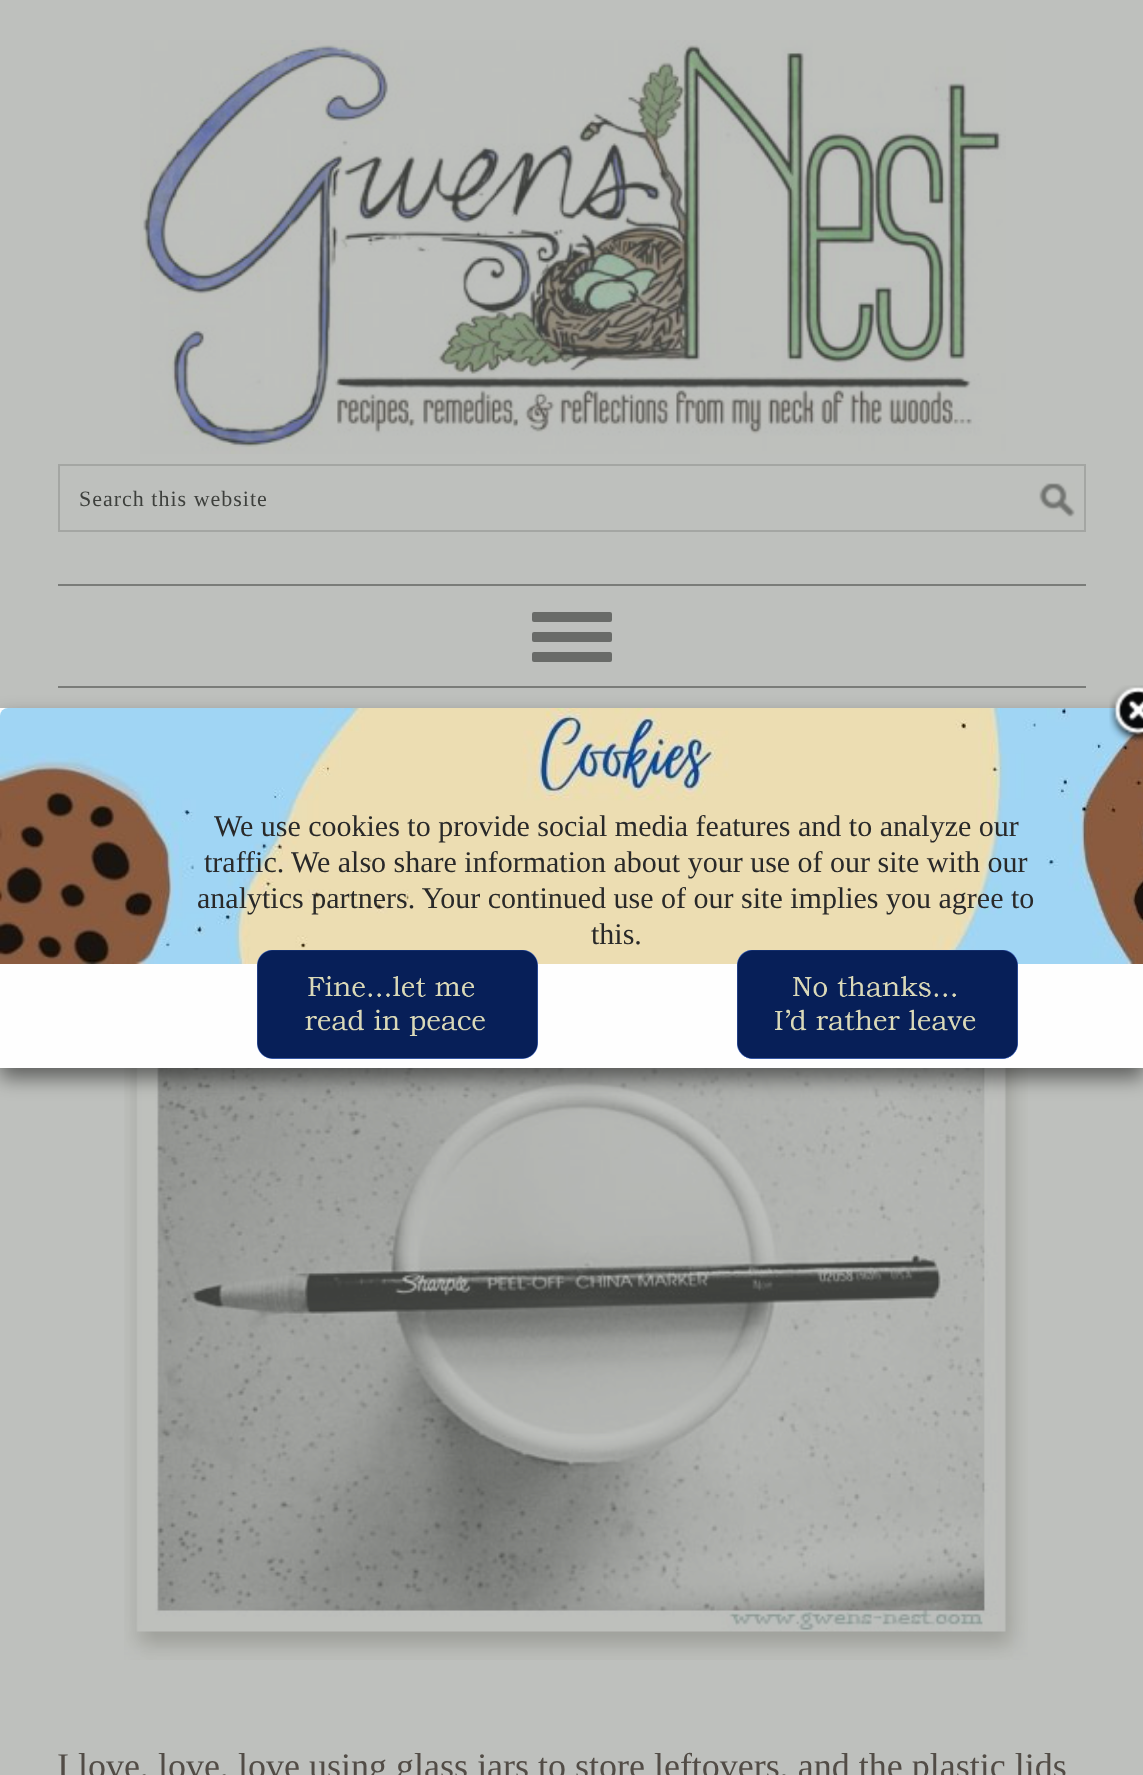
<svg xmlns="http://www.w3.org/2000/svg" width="1143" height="1775">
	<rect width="100%" height="100%" fill="#BEC0BD" />
	<image x="140" y="40" width="866" height="414" href="assets/img1.png" />
	<image x="1039" y="483" width="36" height="34" href="assets/img2.png" />
	<rect x="59" y="465" width="1026" height="66" fill="none" stroke="#A4A6A3" stroke-width="2" />
	<text x="79" y="506" font-family="Liberation Serif" font-size="22" letter-spacing="1" fill="#3E403D">Search this website</text>
	<rect x="58" y="584" width="1028" height="2" fill="#7A7C79" />
	<rect x="58" y="686" width="1028" height="2" fill="#7A7C79" />
	<rect x="532" y="632" width="80" height="10" rx="2" fill="#696B68" />
	<rect x="532" y="612" width="80" height="10" rx="2" fill="#696B68" />
	<rect x="532" y="652" width="80" height="10" rx="2" fill="#696B68" />
	<image x="124" y="1068" width="904" height="592" href="assets/img3.png" />
	<text x="57" y="1778" font-family="Liberation Serif" font-size="36" fill="#524C46">I love, love, love using glass jars to store leftovers, and the plastic lids</text>
	<rect x="0" y="718" width="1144" height="360" fill="#000000" fill-opacity="0.5" filter="blur(10px)" />
	<rect x="0" y="708" width="1143" height="360" fill="#FEFEFE" />
	<image x="0" y="708" width="1143" height="256" href="assets/img4.png" />
	<image x="1109" y="685" width="34" height="57" href="assets/img5.png" />
	<g font-family="Liberation Serif" font-size="30" fill="#292929">
		<text x="214" y="836">We use cookies to provide social media features and to analyze our</text>
		<text x="204" y="872">traffic.</text>
		<text x="291" y="872">We also share information about your use of our site with our</text>
		<text x="197" y="908">analytics partners. Your continued use of our site implies you agree to</text>
		<text x="591" y="944">this.</text>
	</g>
	<image x="257" y="950" width="281" height="109" href="assets/img6.png" />
	<image x="737" y="950" width="281" height="109" href="assets/img7.png" />
</svg>
